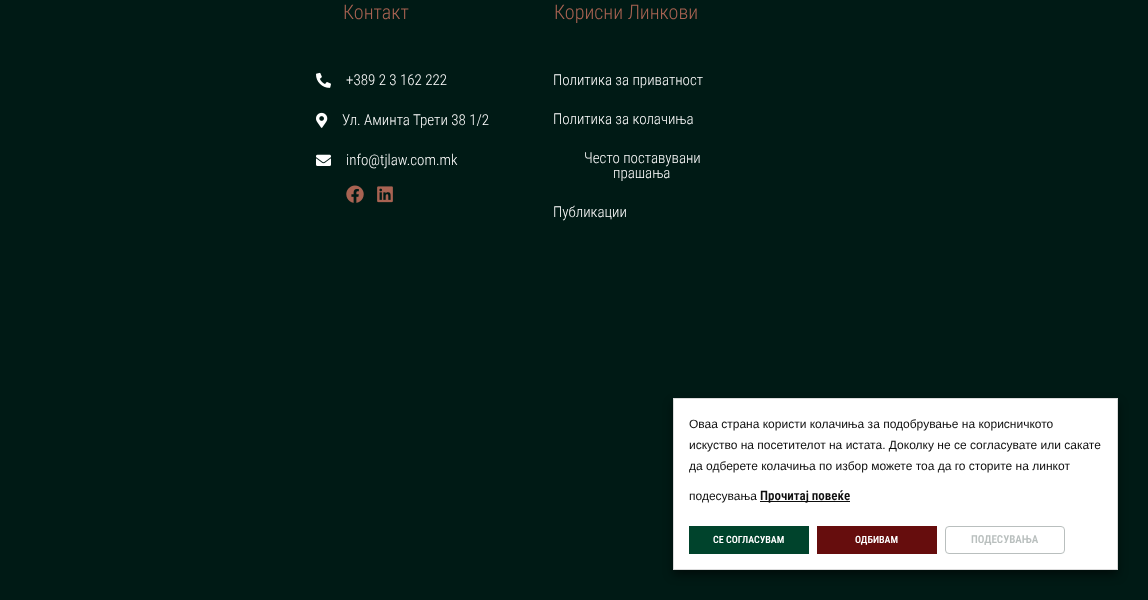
<svg xmlns="http://www.w3.org/2000/svg" width="1148" height="600">
	<rect width="100%" height="100%" fill="#001A15" />
	<text x="343" y="19" font-family="Roboto Condensed" font-size="20" font-weight="300" fill="#A86352">Контакт</text>
	<image x="316" y="72" width="15" height="16" href="assets/img1.png" />
	<text x="346" y="85" font-family="Roboto Condensed" font-size="15" font-weight="300" fill="#FFFFFF">+389 2 3 162 222</text>
	<image x="316" y="112" width="12" height="16" href="assets/img2.png" />
	<text x="342" y="125" font-family="Roboto Condensed" font-size="15" font-weight="300" fill="#FFFFFF">Ул. Аминта Трети 38 1/2</text>
	<image x="316" y="154" width="15" height="12" href="assets/img3.png" />
	<text x="346" y="165" font-family="Roboto Condensed" font-size="15" font-weight="300" fill="#FFFFFF">info@tjlaw.com.mk</text>
	<image x="346" y="185" width="18" height="18" href="assets/img4.png" />
	<image x="377" y="186" width="16" height="17" href="assets/img5.png" />
	<text x="554" y="19" font-family="Roboto Condensed" font-size="20" font-weight="300" fill="#A86352">Корисни Линкови</text>
	<g font-family="Roboto Condensed" font-size="15" font-weight="300" fill="#FFFFFF">
		<text x="553" y="85">Политика за приватност</text>
		<text x="553" y="124">Политика за колачиња</text>
		<text x="584" y="163">Често поставувани</text>
		<text x="613" y="178">прашања</text>
		<text x="553" y="217">Публикации</text>
	</g>
	<rect x="673" y="403" width="445" height="172" fill="#000000" fill-opacity="0.5" filter="blur(5px)" />
	<rect x="673.5" y="398.5" width="444" height="171" fill="#FFFFFF" stroke="#DBDBDB" />
	<g font-family="Liberation Sans" font-size="12" fill="#0E0E0E">
		<text x="689" y="428">Оваа страна користи колачиња за подобрување на корисничкото</text>
		<text x="689" y="449">искуство на посетителот на истата. Доколку не се согласувате или сакате</text>
		<text x="689" y="470">да одберете колачиња по избор можете тоа да го сторите на линкот</text>
		<text x="689" y="500">подесувања</text>
	</g>
	<rect x="760" y="501" width="90" height="1" fill="#0E0E0E" />
	<text x="760" y="500" font-family="Roboto Condensed" font-size="13" font-weight="600" fill="#0E0E0E">Прочитај повеќе</text>
	<rect x="689" y="526" width="120" height="28" fill="#00432C" />
	<text x="713" y="543" font-family="Roboto Condensed" font-size="10" font-weight="600" fill="#FFFFFF">СЕ СОГЛАСУВАМ</text>
	<rect x="817" y="526" width="120" height="28" fill="#660D0D" />
	<text x="855" y="543" font-family="Roboto Condensed" font-size="10" font-weight="600" fill="#FFFFFF">ОДБИВАМ</text>
	<rect x="945.5" y="526.5" width="119" height="27" rx="3.5" fill="none" stroke="#B9BFBE" />
	<text x="971" y="543" font-family="Roboto Condensed" font-size="11" font-weight="600" fill="#B9BFBE">ПОДЕСУВАЊА</text>
</svg>
